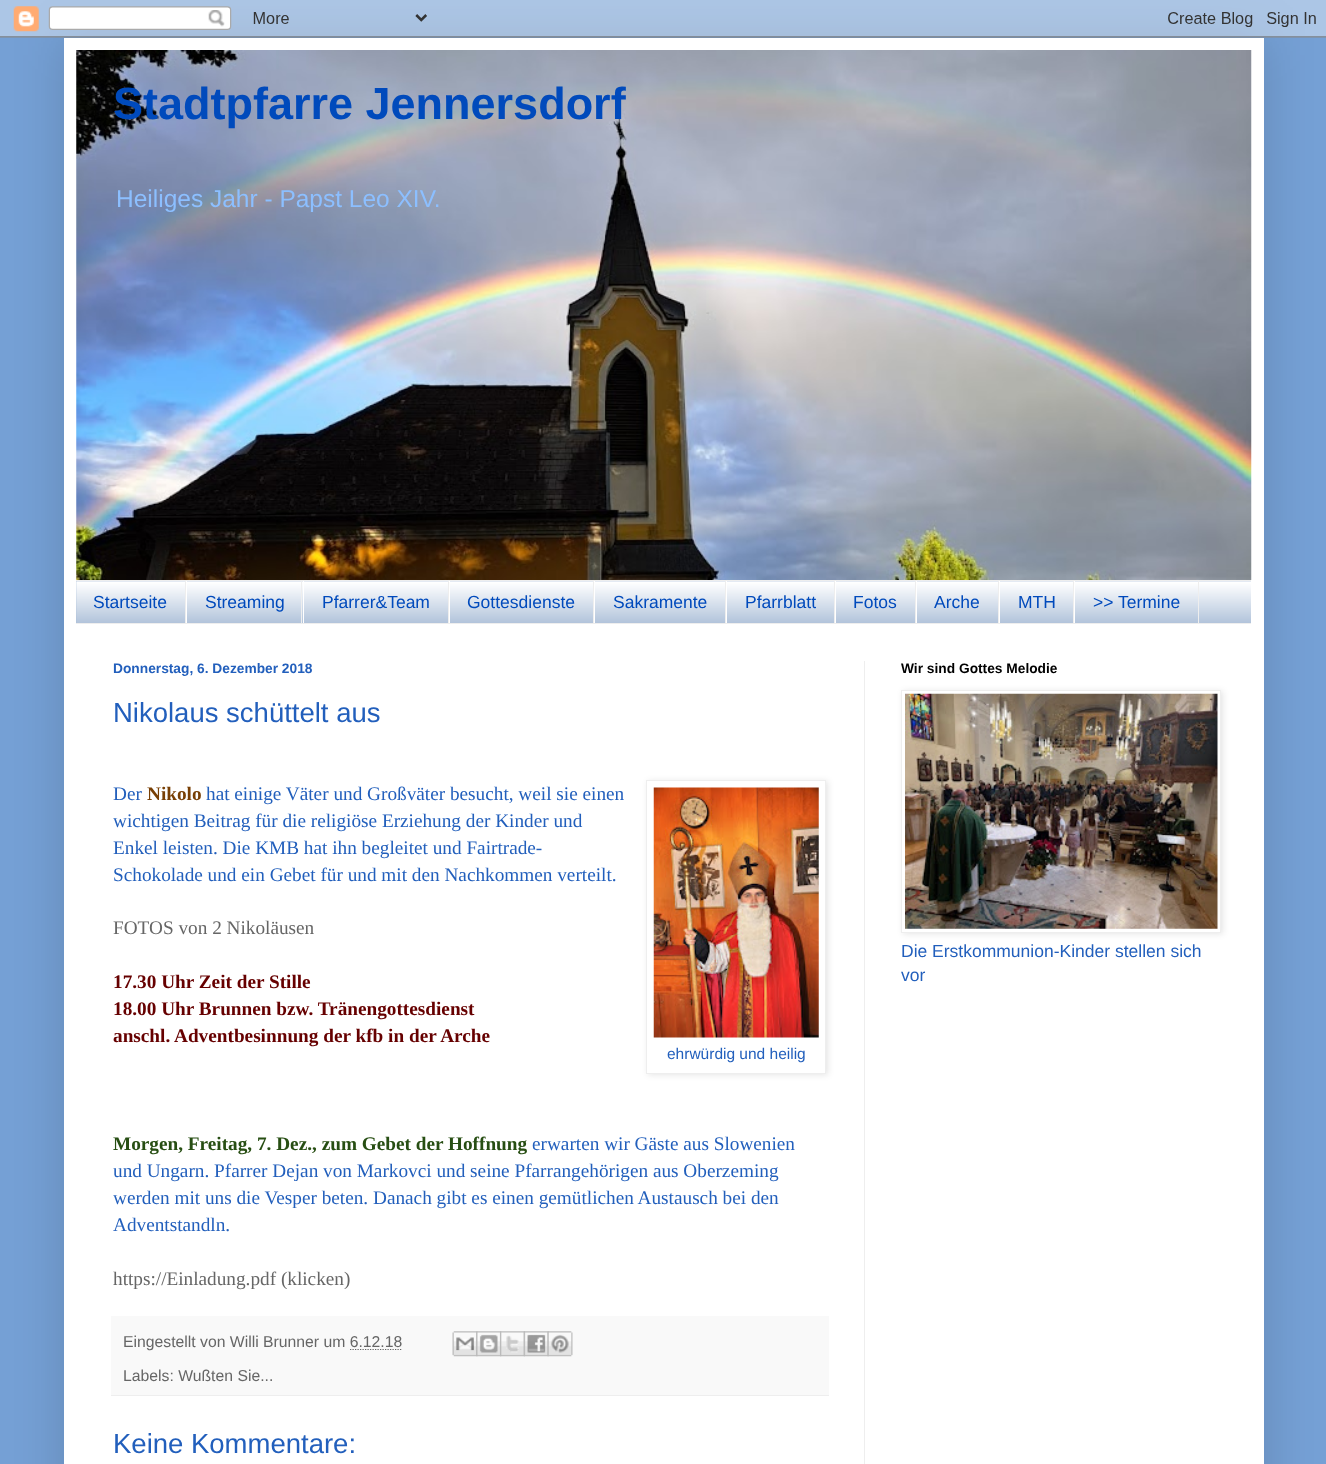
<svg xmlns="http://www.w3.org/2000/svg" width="1326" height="1464">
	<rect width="100%" height="100%" fill="#75A0D5" />
	<rect x="64" y="38" width="1200" height="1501" fill="#000000" fill-opacity="0.15" filter="blur(25px)" />
	<image x="0" y="0" width="1326" height="38" href="assets/img1.png" />
	<rect x="64" y="38" width="1200" height="1426" fill="#FFFFFF" />
	<image x="76" y="50" width="1176" height="530" href="assets/img2.png" />
	<text x="113" y="119" font-family="Liberation Sans" font-size="45" font-weight="700" fill="#004ABC">Stadtpfarre Jennersdorf</text>
	<text x="116" y="207" font-family="Liberation Sans" font-size="24.5" fill="#8CBFFF">Heiliges Jahr - Papst Leo XIV.</text>
	<rect x="76" y="581" width="1175" height="42" fill="#A5BAD5" />
	<image x="76" y="581" width="1175" height="42" href="assets/img3.png" />
	<rect x="76" y="580" width="1175" height="1" fill="#EEEEEE" />
	<rect x="76" y="623" width="1175" height="1" fill="#EEEEEE" />
	<rect x="185" y="581" width="1" height="42" fill="#EEEEEE" />
	<text x="93" y="608" font-family="Liberation Sans" font-size="17.5" fill="#004ABC">Startseite</text>
	<rect x="301" y="581" width="1" height="42" fill="#EEEEEE" />
	<rect x="186" y="581" width="1" height="42" fill="#FFFFFF" />
	<text x="205" y="608" font-family="Liberation Sans" font-size="17.5" fill="#004ABC">Streaming</text>
	<rect x="448" y="581" width="1" height="42" fill="#EEEEEE" />
	<rect x="303" y="581" width="1" height="42" fill="#FFFFFF" />
	<text x="322" y="608" font-family="Liberation Sans" font-size="17.5" fill="#004ABC">Pfarrer&amp;Team</text>
	<rect x="593" y="581" width="1" height="42" fill="#EEEEEE" />
	<rect x="449" y="581" width="1" height="42" fill="#FFFFFF" />
	<text x="467" y="608" font-family="Liberation Sans" font-size="17.5" fill="#004ABC">Gottesdienste</text>
	<rect x="725" y="581" width="1" height="42" fill="#EEEEEE" />
	<rect x="594" y="581" width="1" height="42" fill="#FFFFFF" />
	<text x="613" y="608" font-family="Liberation Sans" font-size="17.5" fill="#004ABC">Sakramente</text>
	<rect x="834" y="581" width="1" height="42" fill="#EEEEEE" />
	<rect x="726" y="581" width="1" height="42" fill="#FFFFFF" />
	<text x="745" y="608" font-family="Liberation Sans" font-size="17.5" fill="#004ABC">Pfarrblatt</text>
	<rect x="915" y="581" width="1" height="42" fill="#EEEEEE" />
	<rect x="835" y="581" width="1" height="42" fill="#FFFFFF" />
	<text x="853" y="608" font-family="Liberation Sans" font-size="17.5" fill="#004ABC">Fotos</text>
	<rect x="998" y="581" width="1" height="42" fill="#EEEEEE" />
	<rect x="916" y="581" width="1" height="42" fill="#FFFFFF" />
	<text x="934" y="608" font-family="Liberation Sans" font-size="17.5" fill="#004ABC">Arche</text>
	<rect x="1073" y="581" width="1" height="42" fill="#EEEEEE" />
	<rect x="999" y="581" width="1" height="42" fill="#FFFFFF" />
	<text x="1018" y="608" font-family="Liberation Sans" font-size="17.5" fill="#004ABC">MTH</text>
	<rect x="1198" y="581" width="1" height="42" fill="#EEEEEE" />
	<rect x="1074" y="581" width="1" height="42" fill="#FFFFFF" />
	<text x="1093" y="608" font-family="Liberation Sans" font-size="17.5" fill="#004ABC">&gt;&gt; Termine</text>
	<rect x="864" y="661" width="1" height="803" fill="#EEEEEE" />
	<text x="113" y="673" font-family="Liberation Sans" font-size="13.75" font-weight="700" fill="#225FBC">Donnerstag, 6. Dezember 2018</text>
	<text x="113" y="722" font-family="Liberation Sans" font-size="27.5" fill="#225FBC">Nikolaus schüttelt aus</text>
	<text x="113" y="800" font-family="Liberation Serif" font-size="19.25" fill="#225FBC">Der</text>
	<text x="147" y="800" font-family="Liberation Serif" font-size="19.25" font-weight="700" fill="#783F04">Nikolo</text>
	<g font-family="Liberation Serif" font-size="19.25" fill="#225FBC">
		<text x="206" y="800">hat einige Väter und Großväter besucht, weil sie einen</text>
		<text x="113" y="827">wichtigen Beitrag für die religiöse Erziehung der Kinder und</text>
		<text x="113" y="854">Enkel leisten. Die KMB hat ihn begleitet und Fairtrade-</text>
		<text x="113" y="881">Schokolade und ein Gebet für und mit den Nachkommen verteilt.</text>
	</g>
	<text x="113" y="934" font-family="Liberation Serif" font-size="19.25" fill="#666666">FOTOS von 2 Nikoläusen</text>
	<g font-family="Liberation Serif" font-size="19.25" font-weight="700" fill="#660000">
		<text x="113" y="988">17.30 Uhr Zeit der Stille</text>
		<text x="113" y="1015">18.00 Uhr Brunnen bzw. Tränengottesdienst</text>
		<text x="113" y="1042">anschl. Adventbesinnung der kfb in der Arche</text>
	</g>
	<rect x="648" y="781" width="180" height="294" fill="#000000" fill-opacity="0.1" filter="blur(3px)" />
	<rect x="646.5" y="780.5" width="179" height="293" fill="#FFFFFF" stroke="#EEEEEE" />
	<image x="653" y="787" width="166" height="251" href="assets/img4.png" />
	<text x="667" y="1059" font-family="Liberation Sans" font-size="15.5" fill="#225FBC">ehrwürdig und heilig</text>
	<text x="113" y="1150" font-family="Liberation Serif" font-size="19.25" font-weight="700" fill="#274E13">Morgen, Freitag, 7. Dez., zum Gebet der Hoffnung</text>
	<g font-family="Liberation Serif" font-size="19.25" fill="#225FBC">
		<text x="532" y="1150">erwarten wir Gäste aus Slowenien</text>
		<text x="113" y="1177">und Ungarn. Pfarrer Dejan von Markovci und seine Pfarrangehörigen aus Oberzeming</text>
		<text x="113" y="1204">werden mit uns die Vesper beten. Danach gibt es einen gemütlichen Austausch bei den</text>
		<text x="113" y="1231">Adventstandln.</text>
	</g>
	<text x="113" y="1285" font-family="Liberation Serif" font-size="19.25" fill="#666666">https://Einladung.pdf (klicken)</text>
	<rect x="111" y="1316" width="718" height="79" fill="#F9F9F9" />
	<rect x="111" y="1395" width="718" height="1" fill="#EEEEEE" />
	<text x="123" y="1347" font-family="Liberation Sans" font-size="15.75" fill="#666666">Eingestellt von Willi Brunner um 6.12.18</text>
	<image x="452" y="1331" width="26" height="26" href="assets/img5.png" />
	<image x="476" y="1331" width="26" height="26" href="assets/img6.png" />
	<image x="500" y="1331" width="25" height="26" href="assets/img7.png" />
	<image x="523" y="1331" width="26" height="26" href="assets/img8.png" />
	<image x="547" y="1331" width="26" height="26" href="assets/img9.png" />
	<path d="M350 1349.5H402.5" fill="none" stroke="#666666" stroke-width="1.2" stroke-dasharray="1.25 1.25" />
	<text x="123" y="1381" font-family="Liberation Sans" font-size="15.75" fill="#666666">Labels: Wußten Sie...</text>
	<text x="113" y="1453" font-family="Liberation Sans" font-size="27.5" fill="#225FBC">Keine Kommentare:</text>
	<text x="901" y="673" font-family="Liberation Sans" font-size="13.75" font-weight="700" fill="#000000">Wir sind Gottes Melodie</text>
	<rect x="903" y="691" width="320" height="243" fill="#000000" fill-opacity="0.1" filter="blur(3px)" />
	<rect x="901.5" y="690.5" width="319" height="242" fill="#FFFFFF" stroke="#EEEEEE" />
	<image x="905" y="693" width="313" height="236" href="assets/img10.png" />
	<g font-family="Liberation Sans" font-size="17.5" fill="#225FBC">
		<text x="901" y="957">Die Erstkommunion-Kinder stellen sich</text>
		<text x="901" y="981">vor</text>
	</g>
</svg>
